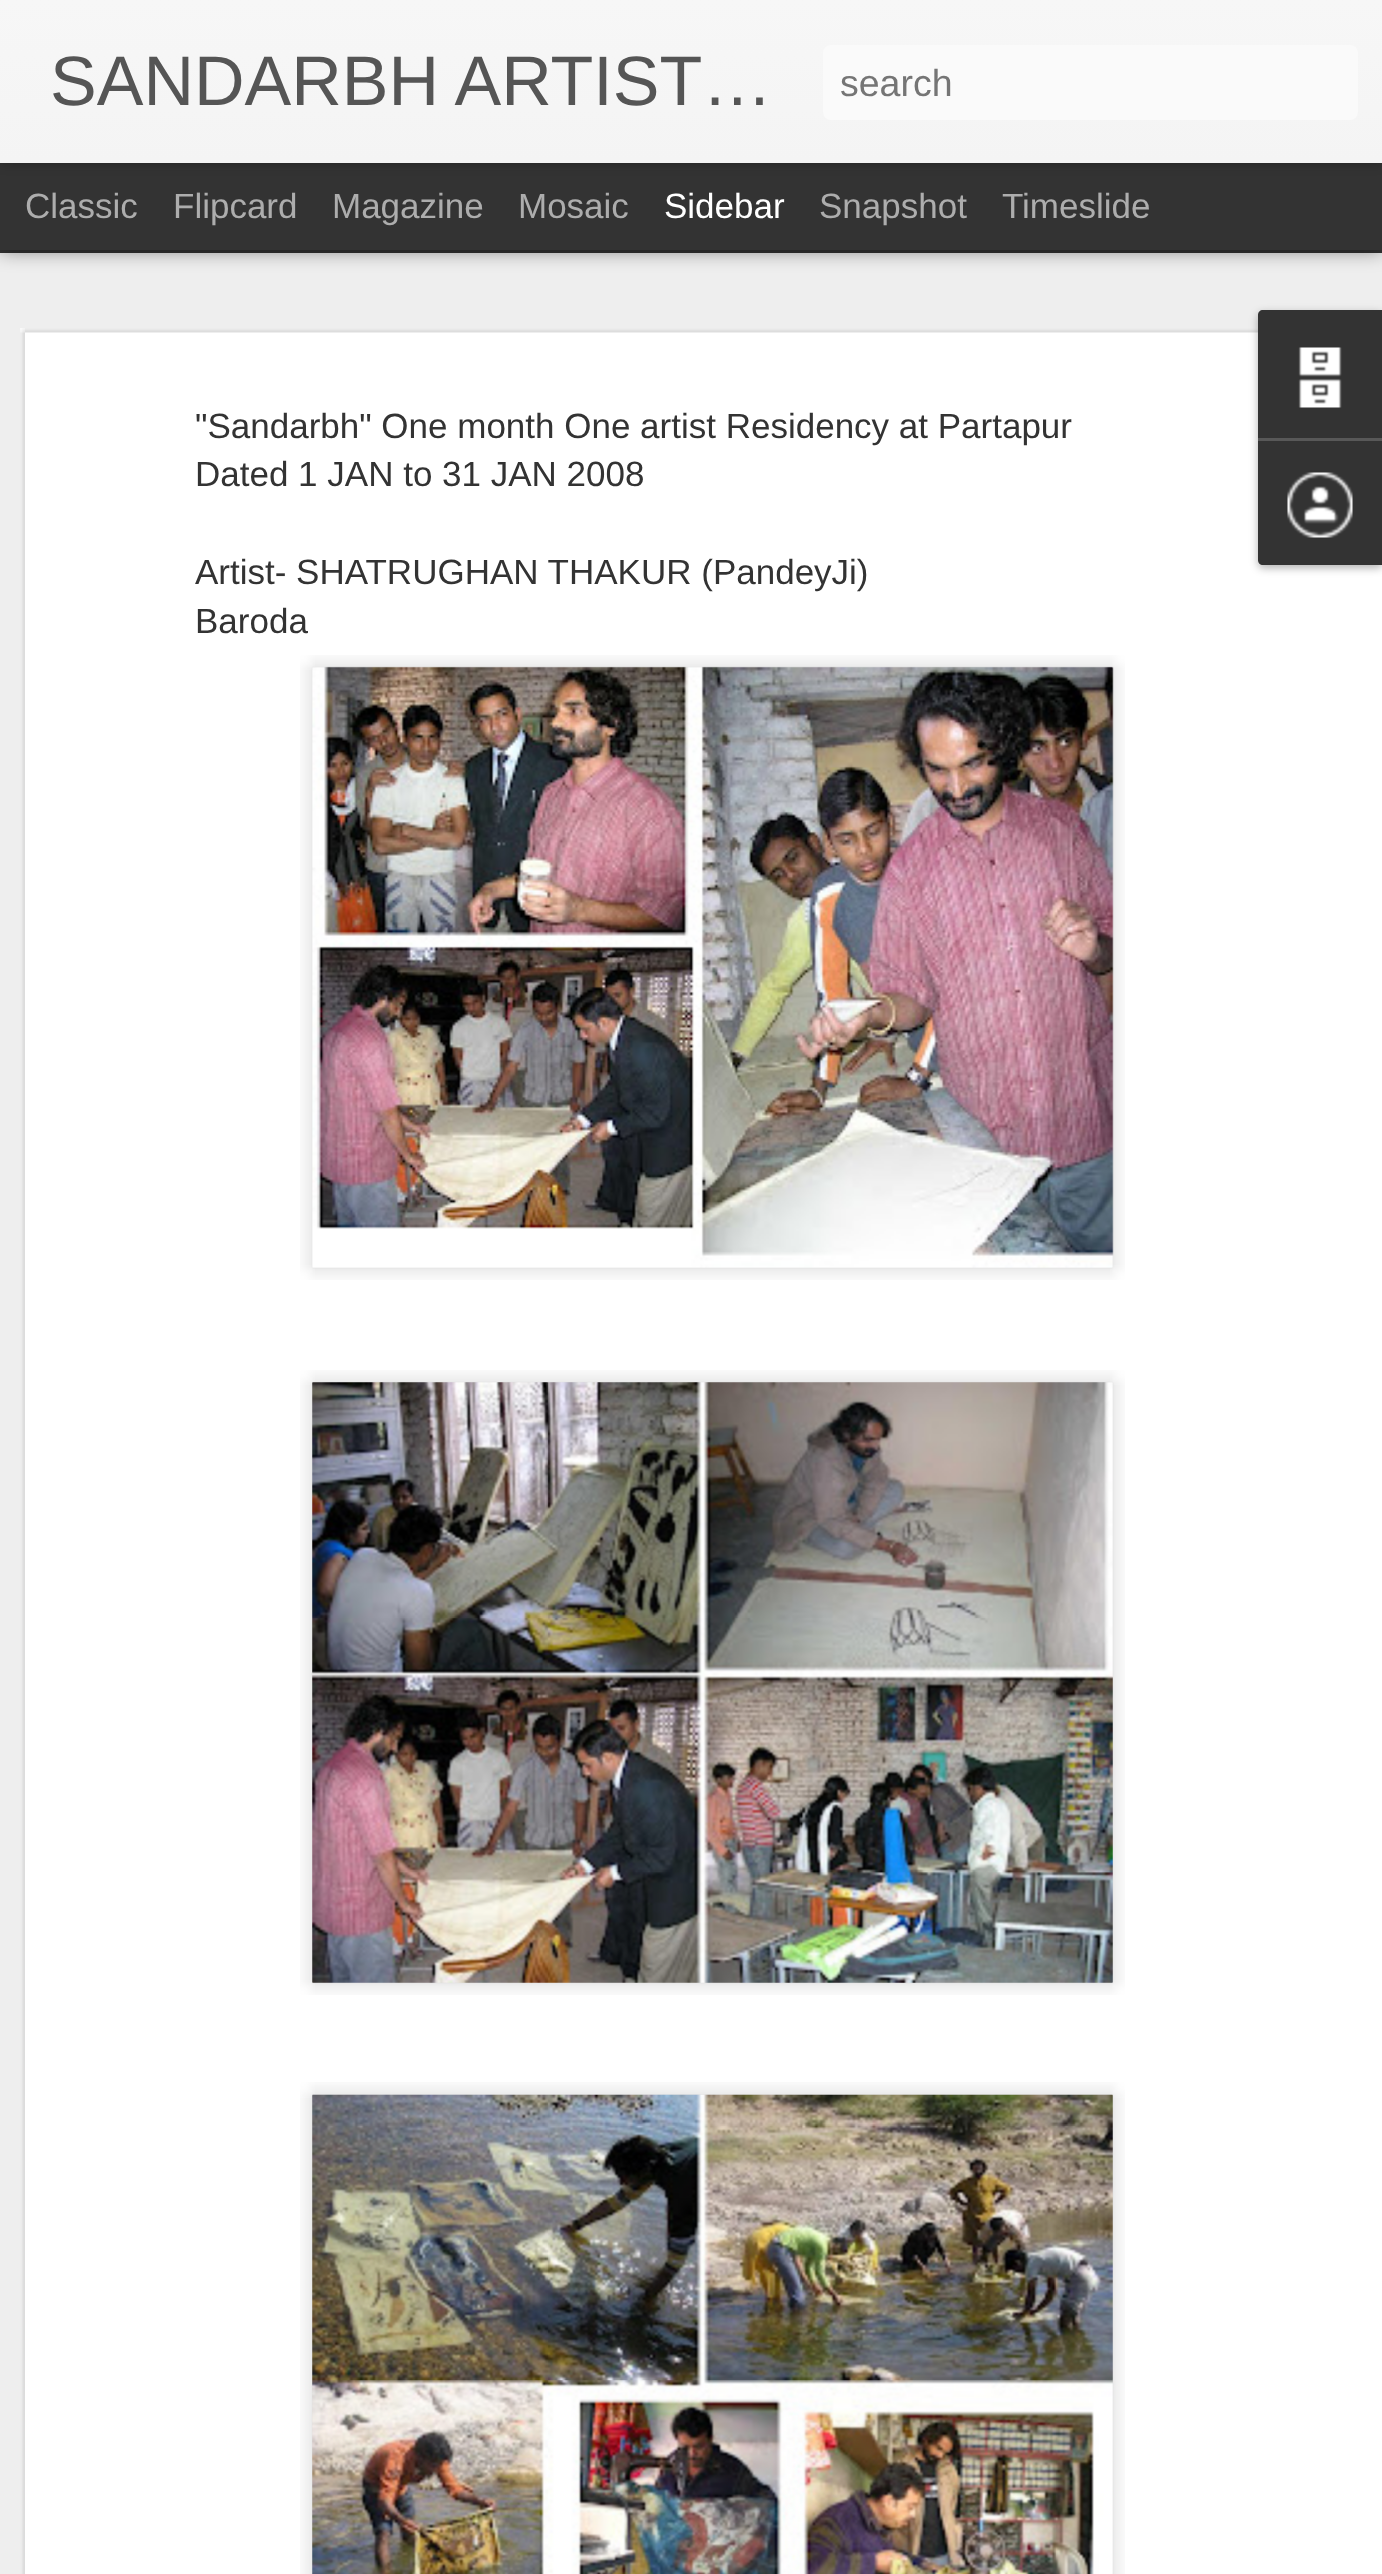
<svg xmlns="http://www.w3.org/2000/svg" width="1382" height="2574">
	<defs>
		<linearGradient id="g1" gradientUnits="userSpaceOnUse" x1="0" y1="0" x2="0" y2="163"><stop offset="0" stop-color="#F7F7F7" /><stop offset="1" stop-color="#F4F4F4" /></linearGradient>
	</defs>
	<rect width="100%" height="100%" fill="#333333" />
	<rect x="0" y="253" width="1382" height="2321" fill="#EEEEEE" />
	<rect x="0" y="163" width="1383" height="87" fill="#000000" fill-opacity="0.5" filter="blur(10px)" />
	<rect x="0" y="163" width="1382" height="87" fill="#333333" />
	<rect x="0" y="0" width="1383" height="163" fill="#000000" fill-opacity="0.3" filter="blur(6px)" />
	<rect x="0" y="0" width="1382" height="163" fill="url(#g1)" />
	<text x="50" y="105" font-family="Liberation Sans" font-size="70" fill="#555555">SANDARBH ARTIST…</text>
	<rect x="823" y="45" width="535" height="75" rx="8" fill="#FAFAFA" />
	<text x="840" y="96" font-family="Liberation Sans" font-size="37.5" fill="#757575">search</text>
	<g font-family="Liberation Sans" font-size="35" fill="#ADADAD">
		<text x="25" y="218">Classic</text>
		<text x="173" y="218">Flipcard</text>
		<text x="332" y="218">Magazine</text>
		<text x="518" y="218">Mosaic</text>
	</g>
	<text x="664" y="218" font-family="Liberation Sans" font-size="35" fill="#FFFFFF">Sidebar</text>
	<g font-family="Liberation Sans" font-size="35" fill="#ADADAD">
		<text x="819" y="218">Snapshot</text>
		<text x="1002" y="218">Timeslide</text>
	</g>
	<rect x="20" y="328" width="1362" height="2246" fill="#FFFFFF" />
	<image x="20" y="328" width="1238" height="2246" href="assets/img1.png" />
	<g font-family="Liberation Sans" font-size="35" fill="#333333">
		<text x="195" y="438">"Sandarbh" One month One artist Residency at Partapur</text>
		<text x="195" y="486">Dated 1 JAN to 31 JAN 2008</text>
		<text x="195" y="584">Artist- SHATRUGHAN THAKUR (PandeyJi)</text>
		<text x="195" y="633">Baroda</text>
	</g>
	<image x="300" y="655" width="825" height="625" href="assets/img2.png" />
	<image x="312" y="666" width="802" height="602" href="assets/img3.png" />
	<image x="300" y="1370" width="825" height="625" href="assets/img4.png" />
	<image x="312" y="1382" width="801" height="601" href="assets/img5.png" />
	<image x="300" y="2082" width="825" height="492" href="assets/img6.png" />
	<image x="312" y="2094" width="801" height="480" href="assets/img7.png" />
	<rect x="1258" y="313" width="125" height="255" rx="5" fill="#000000" fill-opacity="0.3" filter="blur(4px)" />
	<path d="M1263 310H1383V438H1258V315C1258 312 1260 310 1263 310Z" fill="#333333" />
	<image x="1298" y="347" width="44" height="61" href="assets/img8.png" />
	<path d="M1258 438H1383V565H1263C1260 565 1258 563 1258 560Z" fill="#333333" />
	<rect x="1258" y="438" width="124" height="3" fill="#585858" />
	<image x="1287" y="472" width="66" height="66" href="assets/img9.png" />
</svg>
